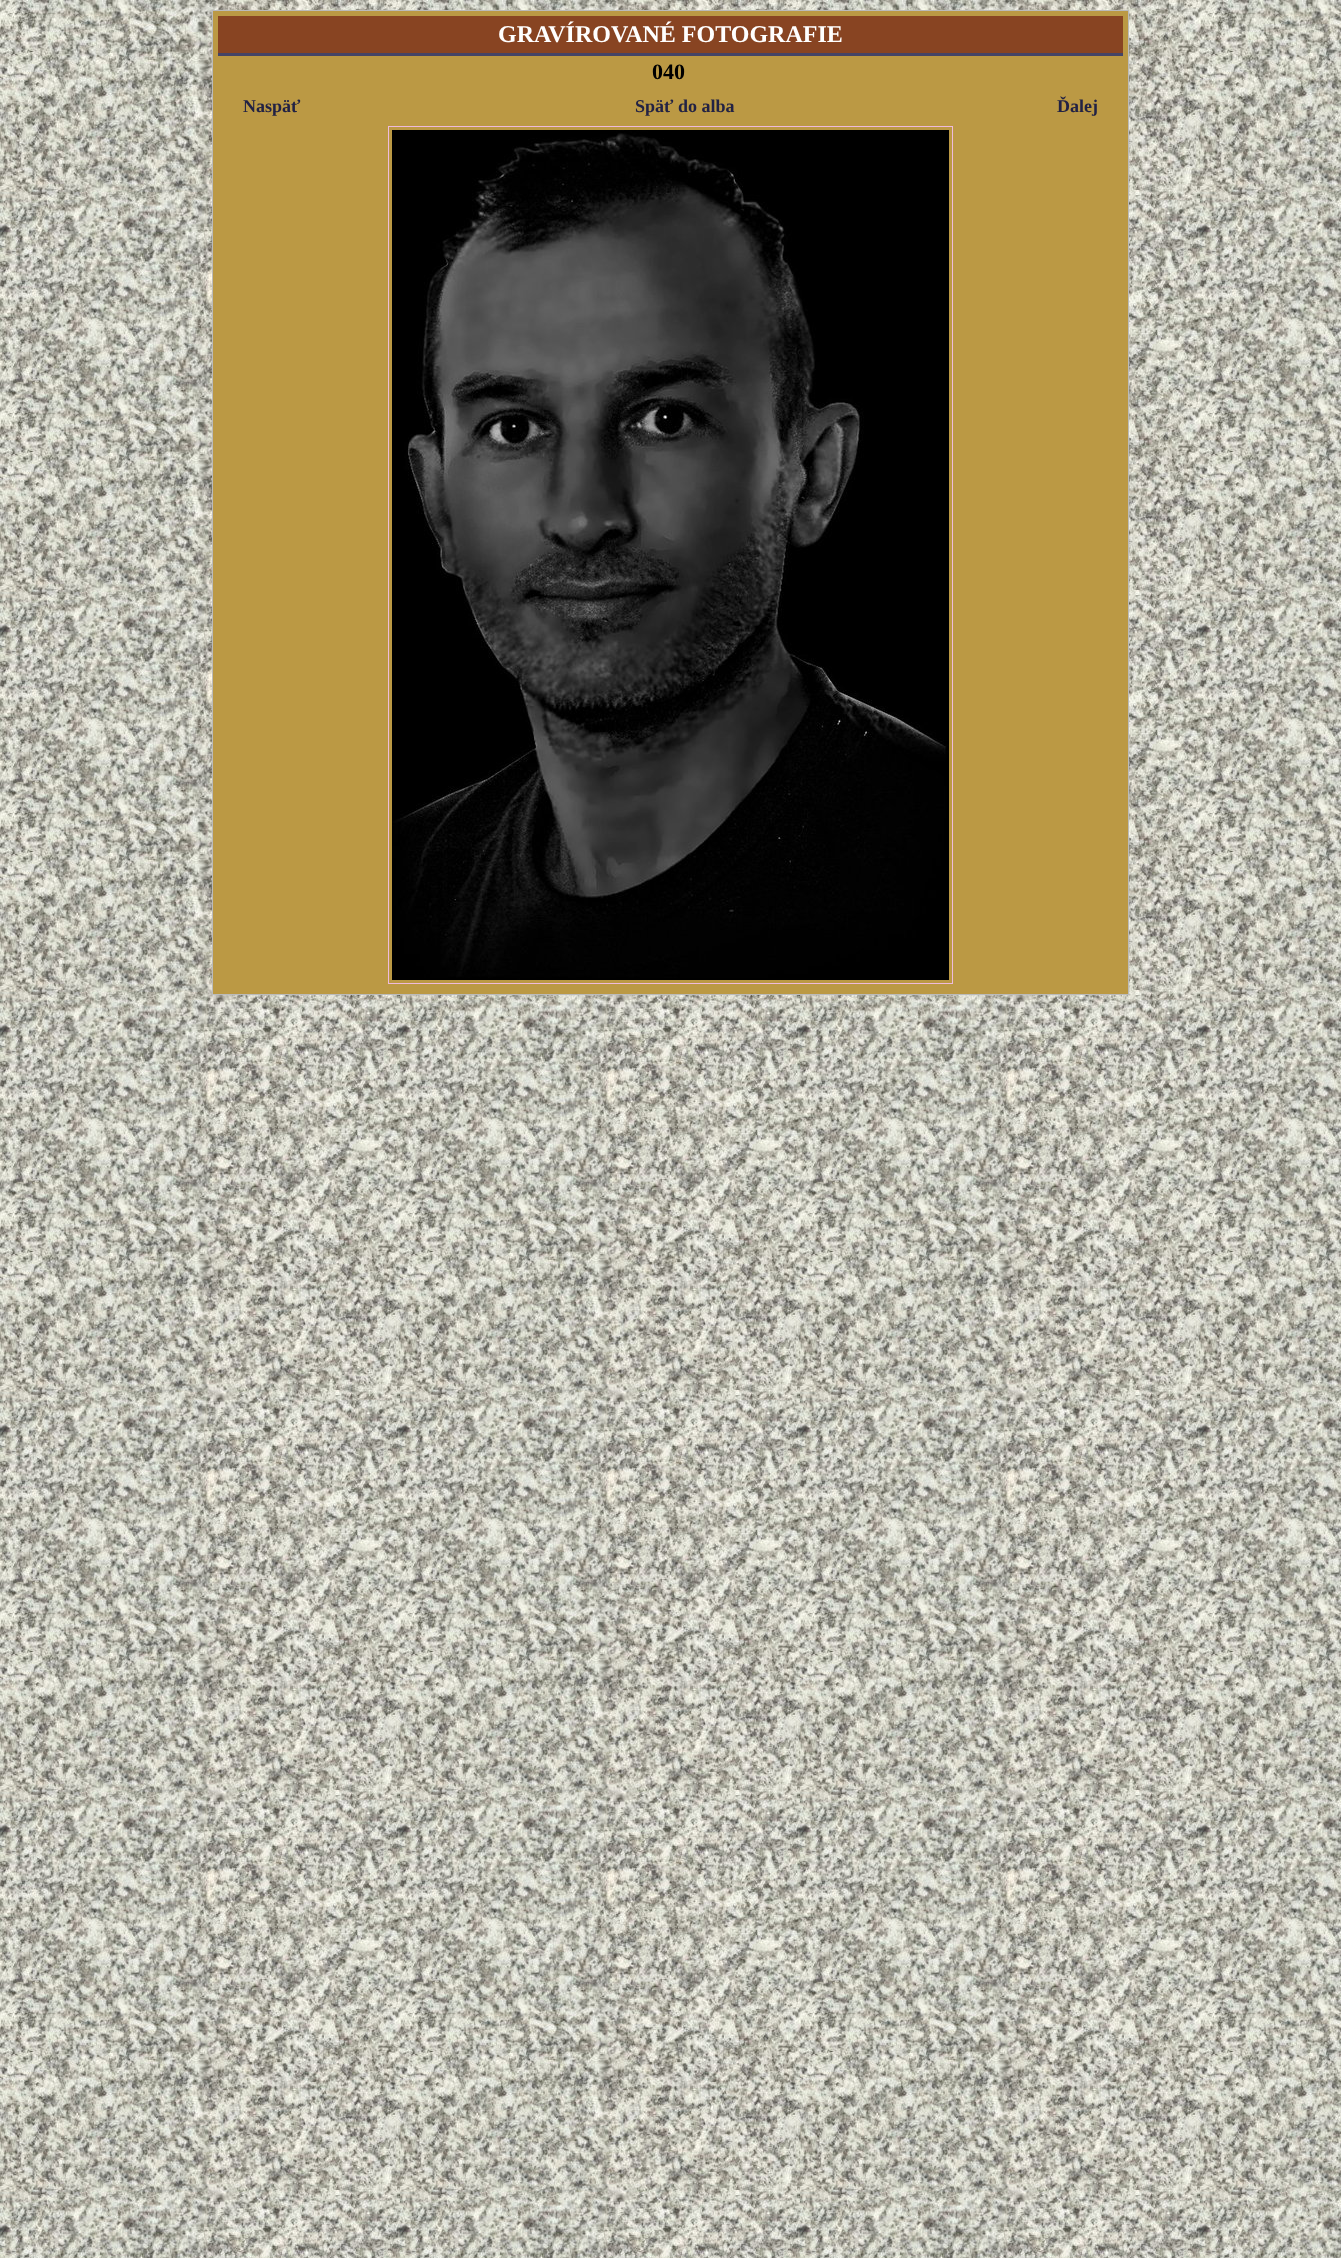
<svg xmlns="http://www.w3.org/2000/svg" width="1341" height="2258">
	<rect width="100%" height="100%" fill="#FFFFFF" />
	<image x="0" y="0" width="1341" height="2258" href="assets/img1.png" />
	<rect x="212.5" y="10.5" width="916" height="984" fill="#BB9944" stroke="#BBBBBB" />
	<rect x="218" y="16" width="905" height="37" fill="#884422" />
	<rect x="218" y="53" width="905" height="3" fill="#444466" />
	<text x="498" y="42" font-family="Liberation Serif" font-size="24" font-weight="700" fill="#FFFFFF">GRAVÍROVANÉ FOTOGRAFIE</text>
	<text x="652" y="79" font-family="Liberation Serif" font-size="22" font-weight="700" fill="#000000">040</text>
	<g font-family="Liberation Serif" font-size="18" font-weight="700" fill="#222244">
		<text x="243" y="112">Naspäť</text>
		<text x="635" y="112">Späť do alba</text>
		<text x="1057" y="112">Ďalej</text>
	</g>
	<rect x="388.5" y="126.5" width="564" height="857" fill="none" stroke="#EEBBDD" />
	<image x="392" y="130" width="557" height="850" href="assets/img2.png" />
</svg>
